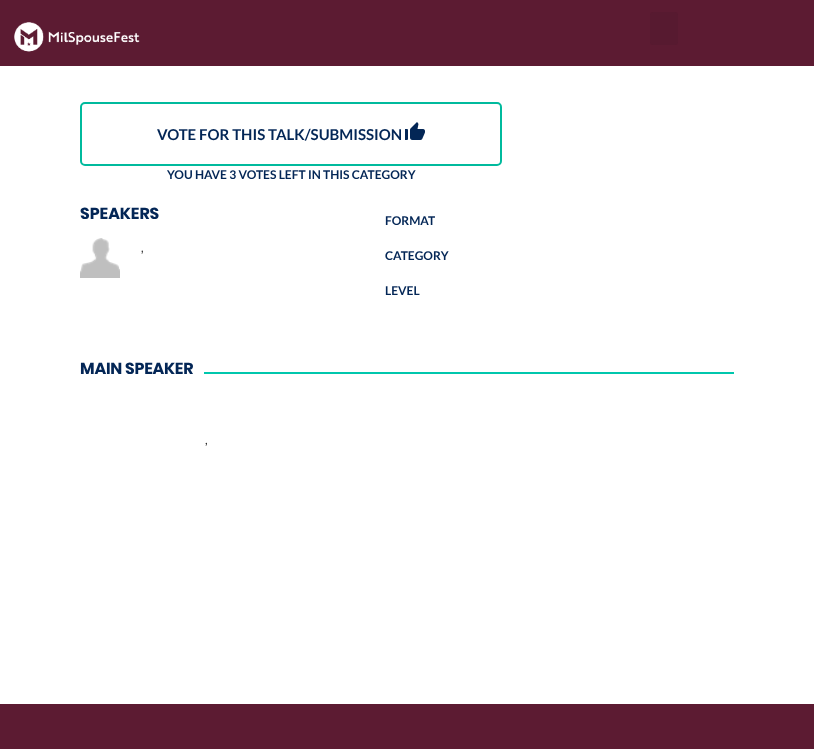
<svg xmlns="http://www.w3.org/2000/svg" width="814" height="749">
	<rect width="100%" height="100%" fill="#FFFFFF" />
	<rect x="0" y="0" width="814" height="66" fill="#5C1B32" />
	<image x="14" y="22" width="126" height="30" href="assets/img1.png" />
	<rect x="650" y="12" width="28" height="33" rx="3" fill="#571A30" />
	<rect x="81" y="103" width="420" height="62" rx="4" fill="none" stroke="#00BA9D" stroke-width="2" />
	<text x="157" y="140" font-family="Lato" font-size="15" font-weight="700" fill="#032656">VOTE FOR THIS TALK/SUBMISSION</text>
	<image x="405" y="122" width="20" height="18" href="assets/img2.png" />
	<text x="167" y="179" font-family="Lato" font-size="12" font-weight="700" fill="#032656">YOU HAVE 3 VOTES LEFT IN THIS CATEGORY</text>
	<text x="80" y="219" font-family="Poppins" font-size="16" font-weight="700" fill="#032656">SPEAKERS</text>
	<image x="80" y="238" width="40" height="40" href="assets/img3.png" />
	<text x="141" y="252" font-family="Montserrat" font-size="11" font-weight="100" fill="#333333">,</text>
	<g font-family="Lato" font-size="12" font-weight="700" fill="#032656">
		<text x="385" y="225">FORMAT</text>
		<text x="385" y="260">CATEGORY</text>
		<text x="385" y="295">LEVEL</text>
	</g>
	<text x="80" y="374" font-family="Poppins" font-size="16" font-weight="700" letter-spacing="-0.2" fill="#032656">MAIN SPEAKER</text>
	<rect x="204" y="372" width="530" height="2" fill="#00C7AD" />
	<text x="205" y="444" font-family="'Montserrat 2'" font-size="12" font-weight="100" fill="#000000">,</text>
	<rect x="0" y="704" width="814" height="45" fill="#5C1B32" />
</svg>
